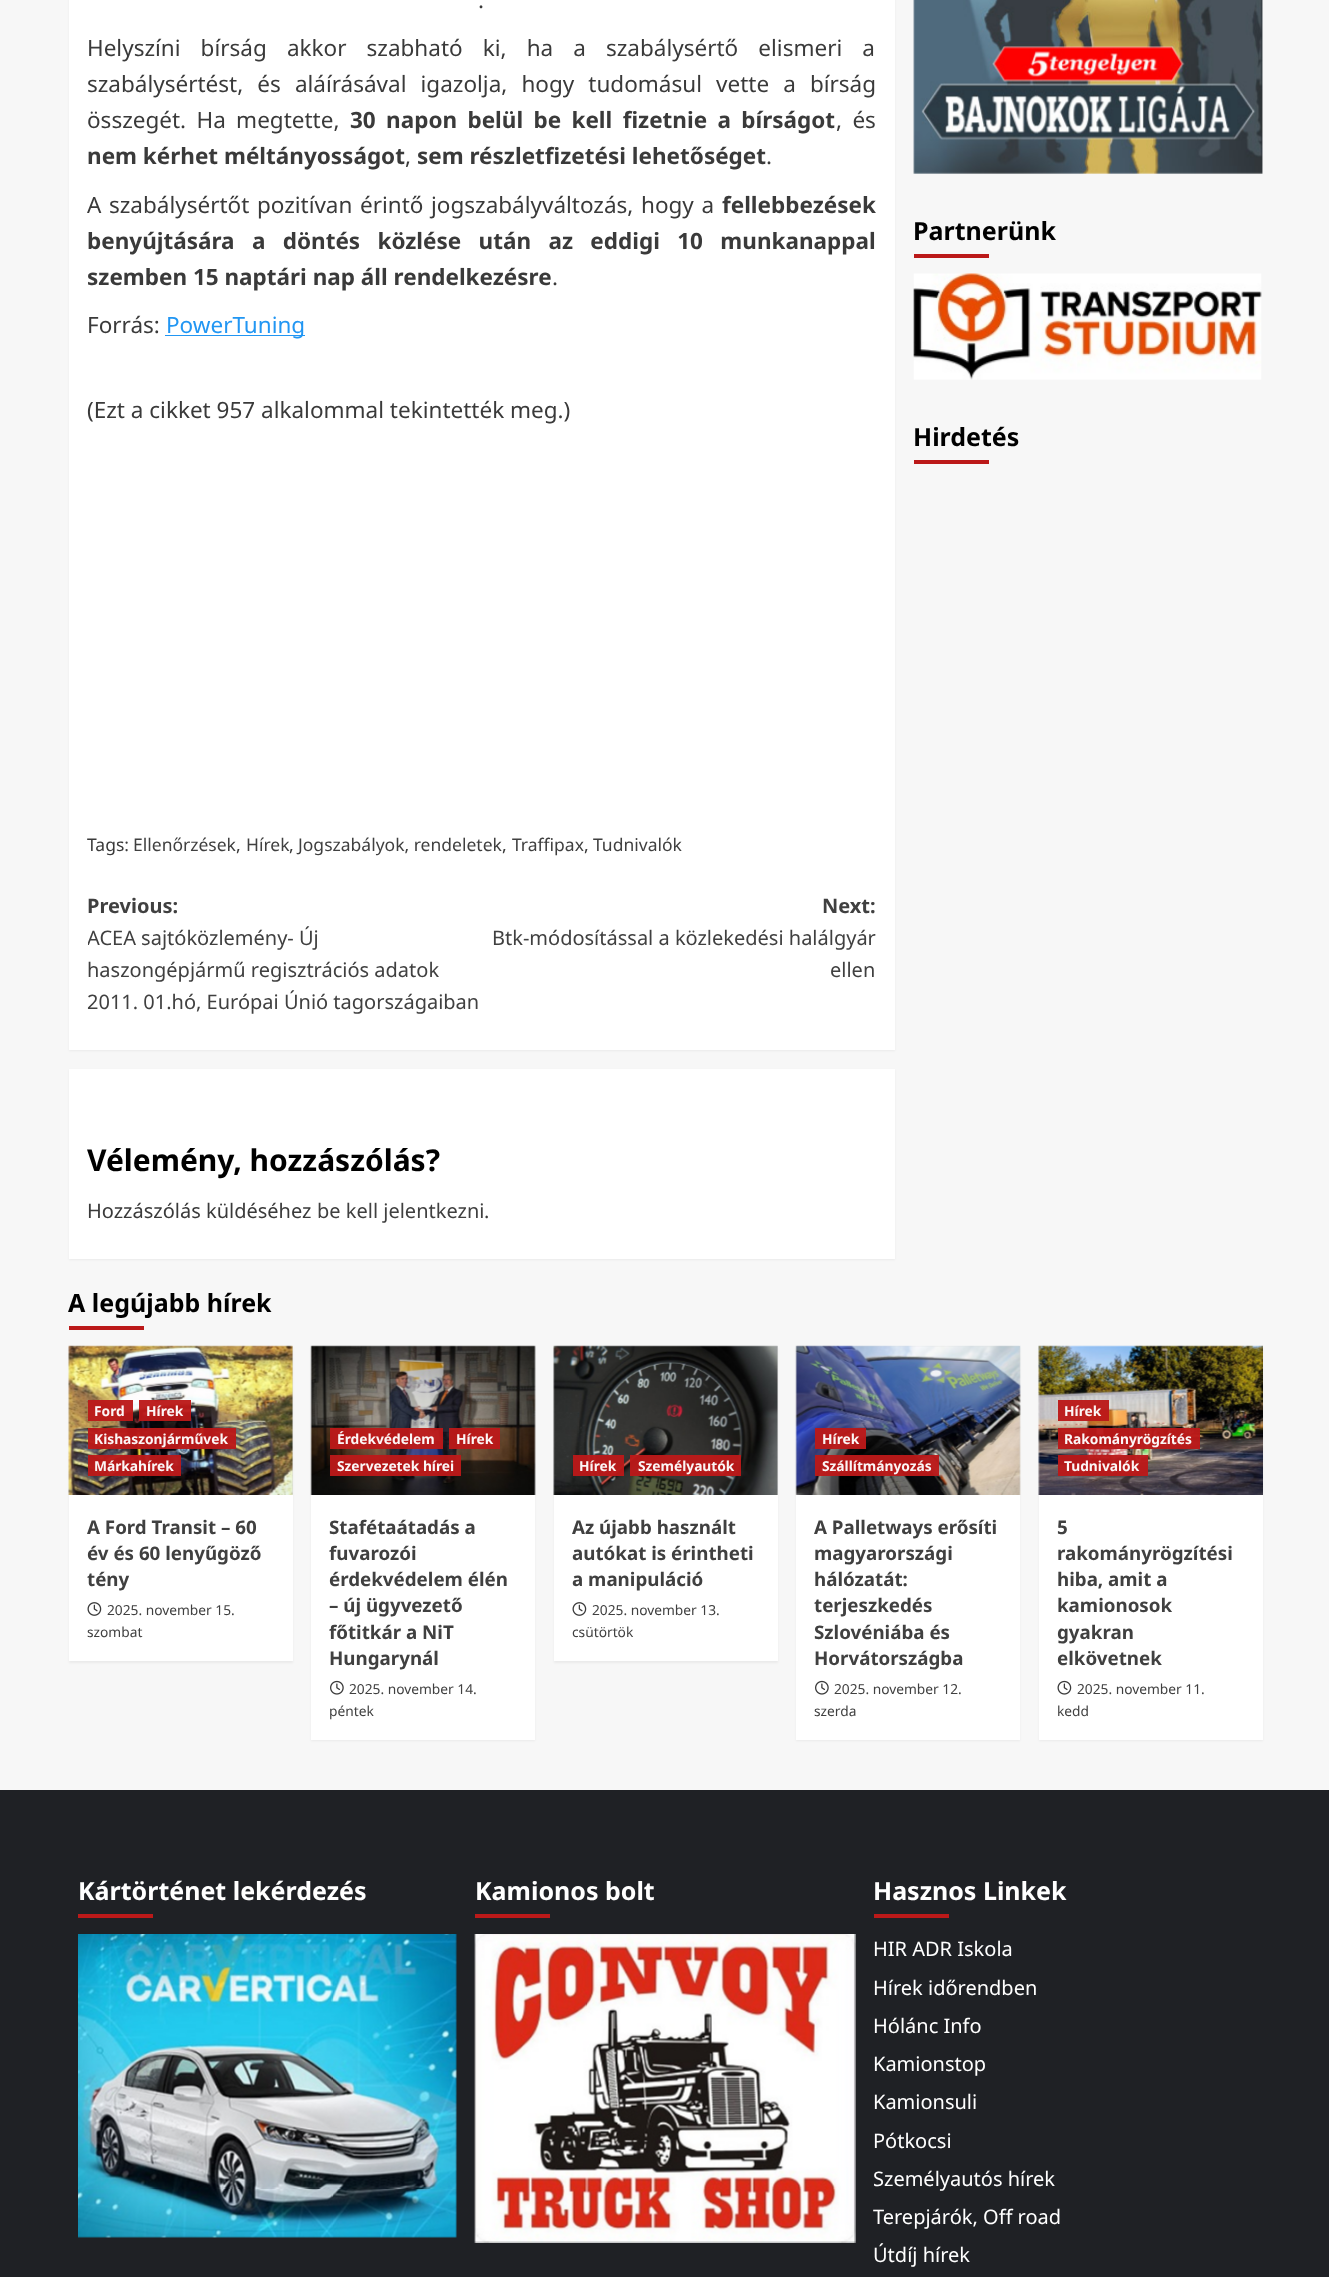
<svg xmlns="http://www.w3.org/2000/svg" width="1329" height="2277">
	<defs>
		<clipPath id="clip1"><rect x="88" y="878" width="788" height="153" /></clipPath>
	</defs>
	<rect width="100%" height="100%" fill="#F7F7F7" />
	<rect x="69" y="-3" width="826" height="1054" fill="#000000" fill-opacity="0.05" filter="blur(1px)" />
	<rect x="69" y="0" width="826" height="1050" fill="#FFFFFF" />
	<g font-family="Noto Sans" font-size="22.5" fill="#3A3A3A">
		<text x="478" y="8">.</text>
		<text x="87" y="56" word-spacing="14.25">Helyszíni bírság akkor szabható ki, ha a szabálysértő elismeri a</text>
		<text x="87" y="92" word-spacing="8.25">szabálysértést, és aláírásával igazolja, hogy tudomásul vette a bírság</text>
		<text x="87" y="128" word-spacing="4.5">összegét. Ha megtette,</text>
	</g>
	<text x="350" y="128" word-spacing="4.5" font-family="Noto Sans" font-size="22.5" font-weight="700" fill="#3A3A3A">30 napon belül be kell fizetnie a bírságot</text>
	<text x="836" y="128" word-spacing="4.5" font-family="Noto Sans" font-size="22.5" fill="#3A3A3A">, és</text>
	<text x="87" y="164" font-family="Noto Sans" font-size="22.5" font-weight="700" fill="#3A3A3A">nem kérhet méltányosságot</text>
	<text x="405" y="164" font-family="Noto Sans" font-size="22.5" fill="#3A3A3A">,</text>
	<text x="417" y="164" font-family="Noto Sans" font-size="22.5" font-weight="700" fill="#3A3A3A">sem részletfizetési lehetőséget</text>
	<g font-family="Noto Sans" font-size="22.5" fill="#3A3A3A">
		<text x="766" y="164">.</text>
		<text x="87" y="213" word-spacing="1.75">A szabálysértőt pozitívan érintő jogszabályváltozás, hogy a</text>
	</g>
	<g font-family="Noto Sans" font-size="22.5" font-weight="700" fill="#3A3A3A">
		<text x="722" y="213">fellebbezések</text>
		<text x="87" y="249" word-spacing="11.5">benyújtására a döntés közlése után az eddigi 10 munkanappal</text>
		<text x="87" y="285">szemben 15 naptári nap áll rendelkezésre</text>
	</g>
	<g font-family="Noto Sans" font-size="22.5" fill="#3A3A3A">
		<text x="552" y="285">.</text>
		<text x="87" y="333">Forrás:</text>
	</g>
	<rect x="165" y="335" width="140" height="1" fill="#2196F3" />
	<text x="166" y="333" font-family="Noto Sans" font-size="22.5" fill="#2196F3">PowerTuning</text>
	<text x="87" y="418" font-family="Noto Sans" font-size="22.5" fill="#3A3A3A">(Ezt a cikket 957 alkalommal tekintették meg.)</text>
	<text x="87" y="851" font-family="Noto Sans" font-size="17.5" fill="#3A3A3A">Tags:</text>
	<text x="133" y="851" font-family="Noto Sans" font-size="17.5" fill="#404040">Ellenőrzések</text>
	<text x="236" y="851" font-family="Noto Sans" font-size="17.5" fill="#3A3A3A">,</text>
	<text x="246" y="851" font-family="Noto Sans" font-size="17.5" fill="#404040">Hírek</text>
	<text x="289" y="851" font-family="Noto Sans" font-size="17.5" fill="#3A3A3A">,</text>
	<text x="298" y="851" font-family="Noto Sans" font-size="17.5" fill="#404040">Jogszabályok, rendeletek</text>
	<text x="502" y="851" font-family="Noto Sans" font-size="17.5" fill="#3A3A3A">,</text>
	<text x="512" y="851" font-family="Noto Sans" font-size="17.5" fill="#404040">Traffipax</text>
	<text x="584" y="851" font-family="Noto Sans" font-size="17.5" fill="#3A3A3A">,</text>
	<text x="593" y="851" font-family="Noto Sans" font-size="17.5" fill="#404040">Tudnivalók</text>
	<text x="87" y="913" font-family="Noto Sans" font-size="20" font-weight="700" fill="#404040">Previous:</text>
	<g clip-path="url(#clip1)">
		<text x="87" y="945" font-family="Noto Sans" font-size="20" fill="#404040">ACEA sajtóközlemény- Új</text>
	</g>
	<g font-family="Noto Sans" font-size="20" fill="#404040">
		<text x="87" y="977">haszongépjármű regisztrációs adatok</text>
		<text x="87" y="1009">2011. 01.hó, Európai Únió tagországaiban</text>
	</g>
	<text x="822" y="913" font-family="Noto Sans" font-size="20" font-weight="700" fill="#404040">Next:</text>
	<g font-family="Noto Sans" font-size="20" fill="#404040">
		<text x="492" y="945">Btk-módosítással a közlekedési halálgyár</text>
		<text x="830" y="977">ellen</text>
	</g>
	<rect x="69" y="1070" width="826" height="190" fill="#000000" fill-opacity="0.05" filter="blur(1px)" />
	<rect x="69" y="1069" width="826" height="190" fill="#FFFFFF" />
	<text x="87" y="1171" font-family="Noto Sans" font-size="30" font-weight="700" fill="#000000">Vélemény, hozzászólás?</text>
	<text x="87" y="1218" font-family="Noto Sans" font-size="20" fill="#3A3A3A">Hozzászólás küldéséhez</text>
	<text x="317" y="1218" font-family="Noto Sans" font-size="20" fill="#404040">be kell jelentkezni</text>
	<text x="484" y="1218" font-family="Noto Sans" font-size="20" fill="#3A3A3A">.</text>
	<image x="913" y="0" width="350" height="174" href="assets/img1.png" />
	<text x="913" y="240" font-family="Noto Sans" font-size="25" font-weight="700" fill="#000000">Partnerünk</text>
	<rect x="914" y="254" width="75" height="4" fill="#BB1919" />
	<image x="913" y="273" width="349" height="107" href="assets/img2.png" />
	<text x="913" y="446" font-family="Noto Sans" font-size="25" font-weight="700" fill="#000000">Hirdetés</text>
	<rect x="914" y="460" width="75" height="4" fill="#BB1919" />
	<text x="68" y="1312" font-family="Noto Sans" font-size="25" font-weight="700" fill="#000000">A legújabb hírek</text>
	<rect x="69" y="1326" width="75" height="4" fill="#BB1919" />
	<rect x="69" y="1348" width="224" height="315" fill="#000000" fill-opacity="0.05" filter="blur(1px)" />
	<rect x="69" y="1495" width="224" height="166" fill="#FFFFFF" />
	<rect x="69" y="1346" width="224" height="149" fill="#D8D8D8" />
	<image x="68" y="1345" width="225" height="150" href="assets/img3.png" />
	<rect x="88" y="1400" width="45" height="21" fill="#BB1919" fill-opacity="0.96" />
	<text x="94" y="1416" font-family="Noto Sans" font-size="13.75" font-weight="700" fill="#FCF6F6">Ford</text>
	<rect x="139" y="1400" width="52" height="21" fill="#BB1919" fill-opacity="0.96" />
	<text x="146" y="1416" font-family="Noto Sans" font-size="13.75" font-weight="700" fill="#FCF6F6">Hírek</text>
	<rect x="88" y="1428" width="148" height="21" fill="#BB1919" fill-opacity="0.96" />
	<text x="94" y="1444" font-family="Noto Sans" font-size="13.75" font-weight="700" fill="#FCF6F6">Kishaszonjárművek</text>
	<rect x="88" y="1455" width="93" height="21" fill="#BB1919" fill-opacity="0.96" />
	<text x="94" y="1471" font-family="Noto Sans" font-size="13.75" font-weight="700" fill="#FCF6F6">Márkahírek</text>
	<g font-family="Noto Sans" font-size="18.75" font-weight="700" fill="#404040">
		<text x="87" y="1534">A Ford Transit – 60</text>
		<text x="87" y="1560">év és 60 lenyűgöző</text>
		<text x="87" y="1586">tény</text>
	</g>
	<image x="87" y="1602" width="15" height="14" href="assets/img4.png" />
	<g font-family="Noto Sans" font-size="13.75" fill="#404040">
		<text x="107" y="1615">2025. november 15.</text>
		<text x="87" y="1637">szombat</text>
	</g>
	<rect x="311" y="1348" width="224" height="393" fill="#000000" fill-opacity="0.05" filter="blur(1px)" />
	<rect x="311" y="1495" width="224" height="245" fill="#FFFFFF" />
	<rect x="311" y="1346" width="224" height="149" fill="#D8D8D8" />
	<image x="310" y="1345" width="226" height="150" href="assets/img5.png" />
	<rect x="330" y="1428" width="113" height="21" fill="#BB1919" fill-opacity="0.96" />
	<text x="337" y="1444" font-family="Noto Sans" font-size="13.75" font-weight="700" fill="#FCF6F6">Érdekvédelem</text>
	<rect x="449" y="1428" width="51" height="21" fill="#BB1919" fill-opacity="0.96" />
	<text x="456" y="1444" font-family="Noto Sans" font-size="13.75" font-weight="700" fill="#FCF6F6">Hírek</text>
	<rect x="330" y="1455" width="131" height="21" fill="#BB1919" fill-opacity="0.96" />
	<text x="337" y="1471" font-family="Noto Sans" font-size="13.75" font-weight="700" fill="#FCF6F6">Szervezetek hírei</text>
	<g font-family="Noto Sans" font-size="18.75" font-weight="700" fill="#404040">
		<text x="329" y="1534">Stafétaátadás a</text>
		<text x="329" y="1560">fuvarozói</text>
		<text x="329" y="1586">érdekvédelem élén</text>
		<text x="329" y="1612">– új ügyvezető</text>
		<text x="329" y="1639">főtitkár a NiT</text>
		<text x="329" y="1665">Hungarynál</text>
	</g>
	<image x="330" y="1680" width="14" height="15" href="assets/img6.png" />
	<g font-family="Noto Sans" font-size="13.75" fill="#404040">
		<text x="349" y="1694">2025. november 14.</text>
		<text x="329" y="1716">péntek</text>
	</g>
	<rect x="554" y="1348" width="224" height="315" fill="#000000" fill-opacity="0.05" filter="blur(1px)" />
	<rect x="554" y="1495" width="224" height="166" fill="#FFFFFF" />
	<rect x="554" y="1346" width="224" height="149" fill="#D8D8D8" />
	<image x="553" y="1345" width="225" height="150" href="assets/img7.png" />
	<rect x="573" y="1455" width="51" height="21" fill="#BB1919" fill-opacity="0.96" />
	<text x="579" y="1471" font-family="Noto Sans" font-size="13.75" font-weight="700" fill="#FCF6F6">Hírek</text>
	<rect x="630" y="1455" width="111" height="21" fill="#BB1919" fill-opacity="0.96" />
	<text x="638" y="1471" font-family="Noto Sans" font-size="13.75" font-weight="700" fill="#FCF6F6">Személyautók</text>
	<g font-family="Noto Sans" font-size="18.75" font-weight="700" fill="#404040">
		<text x="572" y="1534">Az újabb használt</text>
		<text x="572" y="1560">autókat is érintheti</text>
		<text x="572" y="1586">a manipuláció</text>
	</g>
	<image x="572" y="1602" width="15" height="14" href="assets/img4.png" />
	<g font-family="Noto Sans" font-size="13.75" fill="#404040">
		<text x="592" y="1615">2025. november 13.</text>
		<text x="572" y="1637">csütörtök</text>
	</g>
	<rect x="796" y="1348" width="224" height="393" fill="#000000" fill-opacity="0.05" filter="blur(1px)" />
	<rect x="796" y="1495" width="224" height="245" fill="#FFFFFF" />
	<rect x="796" y="1346" width="224" height="149" fill="#D8D8D8" />
	<image x="795" y="1345" width="226" height="150" href="assets/img8.png" />
	<rect x="815" y="1428" width="51" height="21" fill="#BB1919" fill-opacity="0.96" />
	<text x="822" y="1444" font-family="Noto Sans" font-size="13.75" font-weight="700" fill="#FCF6F6">Hírek</text>
	<rect x="815" y="1455" width="124" height="21" fill="#BB1919" fill-opacity="0.96" />
	<text x="822" y="1471" font-family="Noto Sans" font-size="13.75" font-weight="700" fill="#FCF6F6">Szállítmányozás</text>
	<g font-family="Noto Sans" font-size="18.75" font-weight="700" fill="#404040">
		<text x="814" y="1534">A Palletways erősíti</text>
		<text x="814" y="1560">magyarországi</text>
		<text x="814" y="1586">hálózatát:</text>
		<text x="814" y="1612">terjeszkedés</text>
		<text x="814" y="1639">Szlovéniába és</text>
		<text x="814" y="1665">Horvátországba</text>
	</g>
	<image x="815" y="1680" width="14" height="15" href="assets/img6.png" />
	<g font-family="Noto Sans" font-size="13.75" fill="#404040">
		<text x="834" y="1694">2025. november 12.</text>
		<text x="814" y="1716">szerda</text>
	</g>
	<rect x="1039" y="1348" width="224" height="393" fill="#000000" fill-opacity="0.05" filter="blur(1px)" />
	<rect x="1039" y="1346" width="224" height="394" fill="#FFFFFF" />
	<image x="1038" y="1345" width="225" height="150" href="assets/img9.png" />
	<rect x="1058" y="1400" width="51" height="21" fill="#BB1919" fill-opacity="0.96" />
	<text x="1064" y="1416" font-family="Noto Sans" font-size="13.75" font-weight="700" fill="#FCF6F6">Hírek</text>
	<rect x="1058" y="1428" width="142" height="21" fill="#BB1919" fill-opacity="0.96" />
	<text x="1064" y="1444" font-family="Noto Sans" font-size="13.75" font-weight="700" fill="#FCF6F6">Rakományrögzítés</text>
	<rect x="1058" y="1455" width="90" height="21" fill="#BB1919" fill-opacity="0.96" />
	<text x="1064" y="1471" font-family="Noto Sans" font-size="13.75" font-weight="700" fill="#FCF6F6">Tudnivalók</text>
	<g font-family="Noto Sans" font-size="18.75" font-weight="700" fill="#404040">
		<text x="1057" y="1534">5</text>
		<text x="1057" y="1560">rakományrögzítési</text>
		<text x="1057" y="1586">hiba, amit a</text>
		<text x="1057" y="1612">kamionosok</text>
		<text x="1057" y="1639">gyakran</text>
		<text x="1057" y="1665">elkövetnek</text>
	</g>
	<image x="1057" y="1680" width="15" height="15" href="assets/img10.png" />
	<g font-family="Noto Sans" font-size="13.75" fill="#404040">
		<text x="1077" y="1694">2025. november 11.</text>
		<text x="1057" y="1716">kedd</text>
	</g>
	<rect x="0" y="1790" width="1329" height="487" fill="#1F2125" />
	<text x="78" y="1900" font-family="Noto Sans" font-size="25" font-weight="700" fill="#FFFFFF">Kártörténet lekérdezés</text>
	<rect x="78" y="1914" width="75" height="4" fill="#BB1919" />
	<image x="78" y="1934" width="379" height="304" href="assets/img11.png" />
	<text x="475" y="1900" font-family="Noto Sans" font-size="25" font-weight="700" fill="#FFFFFF">Kamionos bolt</text>
	<rect x="475" y="1914" width="75" height="4" fill="#BB1919" />
	<image x="474" y="1934" width="382" height="309" href="assets/img12.png" />
	<text x="873" y="1900" font-family="Noto Sans" font-size="25" font-weight="700" fill="#FFFFFF">Hasznos Linkek</text>
	<rect x="874" y="1914" width="75" height="4" fill="#BB1919" />
	<g font-family="Noto Sans" font-size="20" fill="#FFFFFF">
		<text x="873" y="1956">HIR ADR Iskola</text>
		<text x="873" y="1995">Hírek időrendben</text>
		<text x="873" y="2033">Hólánc Info</text>
		<text x="873" y="2071">Kamionstop</text>
		<text x="873" y="2109">Kamionsuli</text>
		<text x="873" y="2148">Pótkocsi</text>
		<text x="873" y="2186">Személyautós hírek</text>
		<text x="873" y="2224">Terepjárók, Off road</text>
		<text x="873" y="2262">Útdíj hírek</text>
	</g>
</svg>
